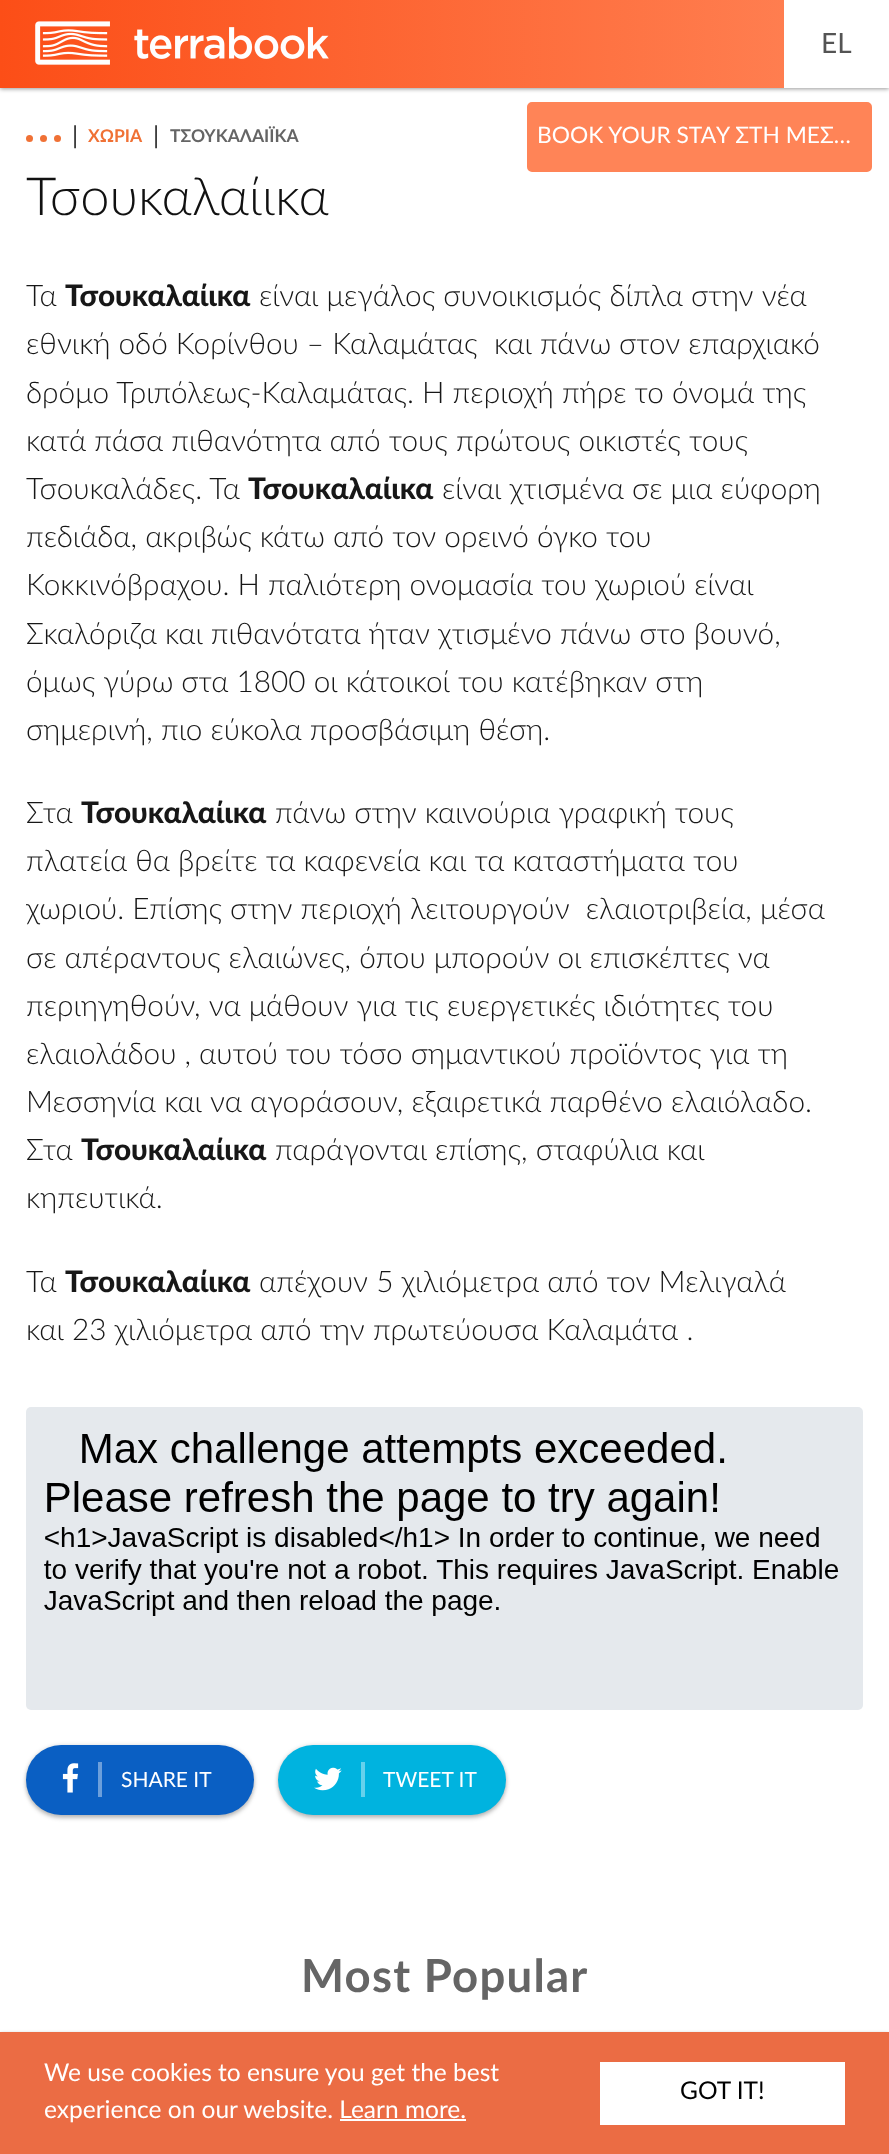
<svg xmlns="http://www.w3.org/2000/svg" width="889" height="2154">
	<defs>
		<linearGradient id="g1" gradientUnits="userSpaceOnUse" x1="0" y1="44" x2="889" y2="44"><stop offset="0" stop-color="#FC4E17" /><stop offset="1" stop-color="#FF8457" /></linearGradient>
	</defs>
	<rect width="100%" height="100%" fill="#FFFFFF" />
	<rect x="0" y="2" width="889" height="87" fill="#000000" fill-opacity="0.4" filter="blur(2px)" />
	<rect x="0" y="0" width="784" height="88" fill="url(#g1)" />
	<image x="35" y="21" width="294" height="44" href="assets/img1.png" />
	<rect x="784" y="0" width="105" height="88" fill="#FFFFFF" />
	<text x="821" y="53" font-family="Lato" font-size="28" fill="#545454">EL</text>
	<rect x="529" y="104" width="341" height="66" rx="3" fill="#FF8457" stroke="#FF8457" stroke-width="4" />
	<text x="537" y="143" font-family="Lato" font-size="22.75" fill="#FFFFFF">BOOK YOUR STAY ΣΤΗ ΜΕΣ…</text>
	<circle cx="29.5" cy="138.5" r="3.5" fill="#F07135" />
	<circle cx="43.5" cy="138.5" r="3.5" fill="#F07135" />
	<circle cx="57.5" cy="138.5" r="3.5" fill="#F07135" />
	<text x="72" y="144" font-family="Lato" font-size="24.5" fill="#2E2E2E">|</text>
	<text x="88" y="142" font-family="Lato" font-size="17.5" font-weight="700" fill="#F07135">ΧΩΡΙΑ</text>
	<text x="153" y="144" font-family="Lato" font-size="24.5" fill="#2E2E2E">|</text>
	<text x="170" y="142" font-family="Lato" font-size="17.5" font-weight="700" fill="#656565">ΤΣΟΥΚΑΛΑΙΪΚΑ</text>
	<text x="26" y="215" font-family="Lato" font-size="52.5" font-weight="300" fill="#111111">Τσουκαλαίικα</text>
	<text x="26" y="306" font-family="Lato" font-size="29.75" font-weight="300" fill="#171717">Τα</text>
	<text x="65" y="306" font-family="Lato" font-size="29.75" font-weight="900" fill="#171717">Τσουκαλαίικα</text>
	<g font-family="Lato" font-size="29.75" font-weight="300" fill="#171717">
		<text x="259" y="306">είναι μεγάλος συνοικισμός δίπλα στην νέα</text>
		<text x="26" y="354">εθνική οδό Κορίνθου – Καλαμάτας</text>
		<text x="494" y="354">και πάνω στον επαρχιακό</text>
		<text x="26" y="403">δρόμο Τριπόλεως-Καλαμάτας. Η περιοχή πήρε το όνομά της</text>
		<text x="26" y="451">κατά πάσα πιθανότητα από τους πρώτους οικιστές τους</text>
		<text x="26" y="499">Τσουκαλάδες. Τα</text>
	</g>
	<text x="248" y="499" font-family="Lato" font-size="29.75" font-weight="900" fill="#171717">Τσουκαλαίικα</text>
	<g font-family="Lato" font-size="29.75" font-weight="300" fill="#171717">
		<text x="442" y="499">είναι χτισμένα σε μια εύφορη</text>
		<text x="26" y="547">πεδιάδα, ακριβώς κάτω από τον ορεινό όγκο του</text>
		<text x="26" y="595">Κοκκινόβραχου. Η παλιότερη ονομασία του χωριού είναι</text>
		<text x="26" y="644">Σκαλόριζα και πιθανότατα ήταν χτισμένο πάνω στο βουνό,</text>
		<text x="26" y="692">όμως γύρω στα 1800 οι κάτοικοί του κατέβηκαν στη</text>
		<text x="26" y="740">σημερινή, πιο εύκολα προσβάσιμη θέση.</text>
		<text x="26" y="823">Στα</text>
	</g>
	<text x="81" y="823" font-family="Lato" font-size="29.75" font-weight="900" fill="#171717">Τσουκαλαίικα</text>
	<g font-family="Lato" font-size="29.75" font-weight="300" fill="#171717">
		<text x="275" y="823">πάνω στην καινούρια γραφική τους</text>
		<text x="26" y="871">πλατεία θα βρείτε τα καφενεία και τα καταστήματα του</text>
		<text x="26" y="919" xml:space="preserve">χωριού. Επίσης στην περιοχή λειτουργούν  ελαιοτριβεία, μέσα</text>
		<text x="26" y="968">σε απέραντους ελαιώνες, όπου μπορούν οι επισκέπτες να</text>
		<text x="26" y="1016">περιηγηθούν, να μάθουν για τις ευεργετικές ιδιότητες του</text>
		<text x="26" y="1064">ελαιολάδου , αυτού του τόσο σημαντικού προϊόντος για τη</text>
		<text x="26" y="1112">Μεσσηνία και να αγοράσουν, εξαιρετικά παρθένο ελαιόλαδο.</text>
		<text x="26" y="1160">Στα</text>
	</g>
	<text x="81" y="1160" font-family="Lato" font-size="29.75" font-weight="900" fill="#171717">Τσουκαλαίικα</text>
	<g font-family="Lato" font-size="29.75" font-weight="300" fill="#171717">
		<text x="275" y="1160">παράγονται επίσης, σταφύλια και</text>
		<text x="26" y="1208">κηπευτικά.</text>
		<text x="26" y="1292">Τα</text>
	</g>
	<text x="65" y="1292" font-family="Lato" font-size="29.75" font-weight="900" fill="#171717">Τσουκαλαίικα</text>
	<g font-family="Lato" font-size="29.75" font-weight="300" fill="#171717">
		<text x="259" y="1292">απέχουν 5 χιλιόμετρα από τον Μελιγαλά</text>
		<text x="26" y="1340">και 23 χιλιόμετρα από την πρωτεύουσα Καλαμάτα .</text>
	</g>
	<rect x="26" y="1407" width="837" height="303" rx="5" fill="#E5E9ED" />
	<image x="44" y="1432" width="795" height="184" href="assets/img2.png" />
	<rect x="26" y="1748" width="228" height="70" rx="35" fill="#000000" fill-opacity="0.24" filter="blur(2px)" />
	<rect x="26" y="1745" width="228" height="70" rx="35" fill="#000000" fill-opacity="0.12" filter="blur(2px)" />
	<rect x="26" y="1745" width="228" height="70" rx="35" fill="#0A5FC3" />
	<image x="62" y="1763" width="17" height="30" href="assets/img3.png" />
	<rect x="98" y="1762" width="4" height="35" fill="#6C9FDB" />
	<text x="121" y="1787" font-family="Lato" font-size="21" fill="#FFFFFF">SHARE IT</text>
	<rect x="278" y="1748" width="228" height="70" rx="35" fill="#000000" fill-opacity="0.24" filter="blur(2px)" />
	<rect x="278" y="1745" width="228" height="70" rx="35" fill="#000000" fill-opacity="0.12" filter="blur(2px)" />
	<rect x="278" y="1745" width="228" height="70" rx="35" fill="#00B3DF" />
	<image x="314" y="1767" width="28" height="24" href="assets/img4.png" />
	<rect x="361" y="1762" width="4" height="35" fill="#66D1EC" />
	<text x="383" y="1787" font-family="Lato" font-size="21" fill="#FFFFFF">TWEET IT</text>
	<text x="301" y="1992" font-family="Lato" font-size="45.5" font-weight="700" letter-spacing="1.25" fill="#656565">Most Popular</text>
	<rect x="0" y="2034" width="889" height="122" fill="#000000" fill-opacity="0.4" filter="blur(2px)" />
	<rect x="0" y="2032" width="889" height="122" fill="#EB6C44" />
	<g font-family="Lato" font-size="24.5" fill="#FFFFFF">
		<text x="44" y="2081">We use cookies to ensure you get the best</text>
		<text x="44" y="2118">experience on our website. Learn more.</text>
	</g>
	<rect x="340" y="2119" width="126" height="2" fill="#FFFFFF" />
	<rect x="600" y="2062" width="245" height="63" fill="#FFFFFF" />
	<text x="680" y="2099" font-family="Lato" font-size="24.5" fill="#000000">GOT IT!</text>
</svg>
